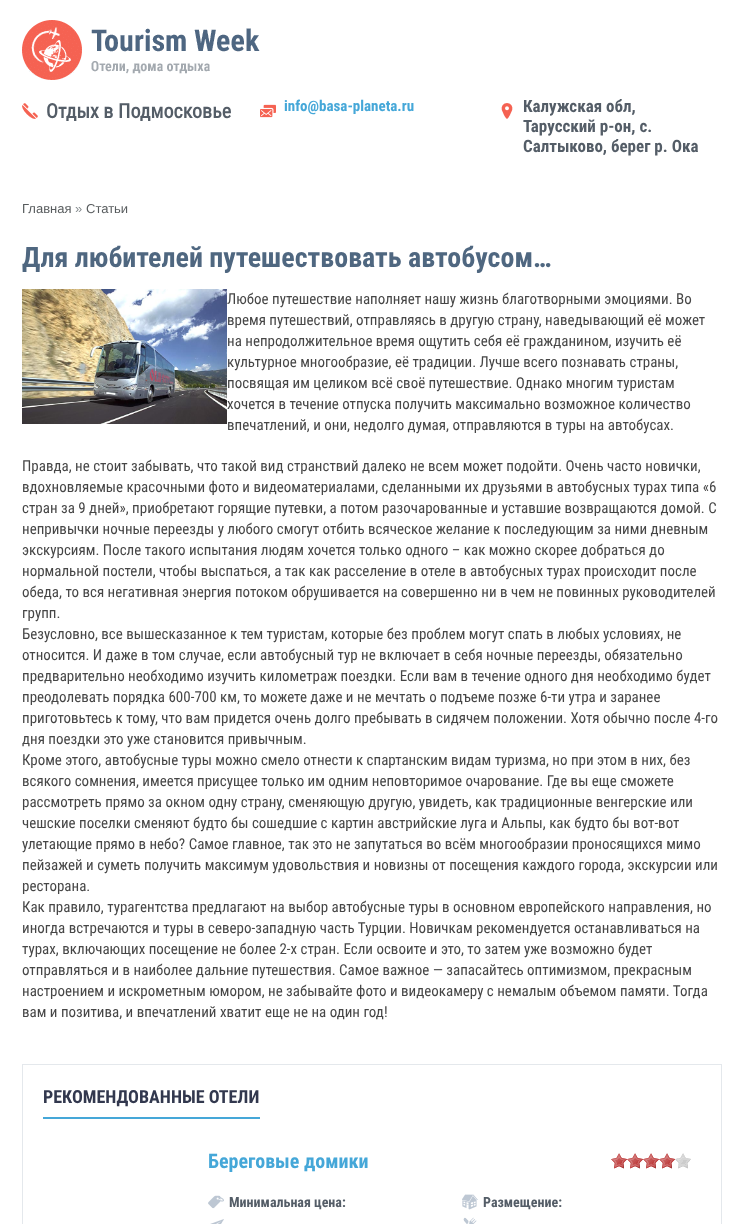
<svg xmlns="http://www.w3.org/2000/svg" width="744" height="1224">
	<rect width="100%" height="100%" fill="#FFFFFF" />
	<image x="22" y="20" width="238" height="60" href="assets/img1.png" />
	<image x="22" y="103" width="16" height="16" href="assets/img2.png" />
	<text x="46" y="118" font-family="Roboto Condensed" font-size="20" font-weight="700" fill="#545D67">Отдых в Подмосковье</text>
	<image x="260" y="104" width="16" height="14" href="assets/img3.png" />
	<text x="284" y="111" font-family="'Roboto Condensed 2'" font-size="15" font-weight="700" fill="#45A7D8">info@basa-planeta.ru</text>
	<image x="501" y="103" width="12" height="16" href="assets/img4.png" />
	<g font-family="'Roboto Condensed 2'" font-size="17" font-weight="700" fill="#545D67">
		<text x="523" y="112">Калужская обл,</text>
		<text x="523" y="132">Тарусский р-он, с.</text>
		<text x="523" y="152">Салтыково, берег р. Ока</text>
	</g>
	<text x="22" y="213" font-family="Liberation Sans" font-size="13" fill="#575B5D">Главная</text>
	<text x="75" y="213" font-family="Liberation Sans" font-size="13" fill="#82888B">»</text>
	<text x="86" y="213" font-family="Liberation Sans" font-size="13" fill="#575B5D">Статьи</text>
	<text x="22" y="267" font-family="'Roboto Condensed 2'" font-size="28" font-weight="700" fill="#4F6780">Для любителей путешествовать автобусом…</text>
	<image x="22" y="289" width="205" height="135" href="assets/img5.png" />
	<g font-family="Roboto Condensed" font-size="15" fill="#464646">
		<text x="227" y="304">Любое путешествие наполняет нашу жизнь благотворными эмоциями. Во</text>
		<text x="227" y="325">время путешествий, отправляясь в другую страну, наведывающий её может</text>
		<text x="227" y="346">на непродолжительное время ощутить себя её гражданином, изучить её</text>
		<text x="227" y="367">культурное многообразие, её традиции. Лучше всего познавать страны,</text>
		<text x="227" y="388">посвящая им целиком всё своё путешествие. Однако многим туристам</text>
		<text x="227" y="409">хочется в течение отпуска получить максимально возможное количество</text>
		<text x="227" y="430">впечатлений, и они, недолго думая, отправляются в туры на автобусах.</text>
		<text x="22" y="471">Правда, не стоит забывать, что такой вид странствий далеко не всем может подойти. Очень часто новички,</text>
		<text x="22" y="492">вдохновляемые красочными фото и видеоматериалами, сделанными их друзьями в автобусных турах типа «6</text>
		<text x="22" y="513">стран за 9 дней», приобретают горящие путевки, а потом разочарованные и уставшие возвращаются домой. С</text>
		<text x="22" y="534">непривычки ночные переезды у любого смогут отбить всяческое желание к последующим за ними дневным</text>
		<text x="22" y="555">экскурсиям. После такого испытания людям хочется только одного – как можно скорее добраться до</text>
		<text x="22" y="576">нормальной постели, чтобы выспаться, а так как расселение в отеле в автобусных турах происходит после</text>
		<text x="22" y="597">обеда, то вся негативная энергия потоком обрушивается на совершенно ни в чем не повинных руководителей</text>
		<text x="22" y="618">групп.</text>
		<text x="22" y="639">Безусловно, все вышесказанное к тем туристам, которые без проблем могут спать в любых условиях, не</text>
		<text x="22" y="660">относится. И даже в том случае, если автобусный тур не включает в себя ночные переезды, обязательно</text>
		<text x="22" y="681">предварительно необходимо изучить километраж поездки. Если вам в течение одного дня необходимо будет</text>
		<text x="22" y="702">преодолевать порядка 600-700 км, то можете даже и не мечтать о подъеме позже 6-ти утра и заранее</text>
		<text x="22" y="723">приготовьтесь к тому, что вам придется очень долго пребывать в сидячем положении. Хотя обычно после 4-го</text>
		<text x="22" y="744">дня поездки это уже становится привычным.</text>
		<text x="22" y="765">Кроме этого, автобусные туры можно смело отнести к спартанским видам туризма, но при этом в них, без</text>
		<text x="22" y="786">всякого сомнения, имеется присущее только им одним неповторимое очарование. Где вы еще сможете</text>
		<text x="22" y="807">рассмотреть прямо за окном одну страну, сменяющую другую, увидеть, как традиционные венгерские или</text>
		<text x="22" y="828">чешские поселки сменяют будто бы сошедшие с картин австрийские луга и Альпы, как будто бы вот-вот</text>
		<text x="22" y="849">улетающие прямо в небо? Самое главное, так это не запутаться во всём многообразии проносящихся мимо</text>
		<text x="22" y="870">пейзажей и суметь получить максимум удовольствия и новизны от посещения каждого города, экскурсии или</text>
		<text x="22" y="891">ресторана.</text>
		<text x="22" y="912">Как правило, турагентства предлагают на выбор автобусные туры в основном европейского направления, но</text>
		<text x="22" y="933">иногда встречаются и туры в северо-западную часть Турции. Новичкам рекомендуется останавливаться на</text>
		<text x="22" y="954">турах, включающих посещение не более 2-х стран. Если освоите и это, то затем уже возможно будет</text>
		<text x="22" y="975">отправляться и в наиболее дальние путешествия. Самое важное — запасайтесь оптимизмом, прекрасным</text>
		<text x="22" y="996">настроением и искрометным юмором, не забывайте фото и видеокамеру с немалым объемом памяти. Тогда</text>
		<text x="22" y="1017">вам и позитива, и впечатлений хватит еще не на один год!</text>
	</g>
	<rect x="22.5" y="1064.5" width="699" height="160" fill="none" stroke="#E4E8EC" />
	<text x="43" y="1103" font-family="'Roboto Condensed 2'" font-size="18" font-weight="700" fill="#32384E">РЕКОМЕНДОВАННЫЕ ОТЕЛИ</text>
	<rect x="43" y="1117" width="217" height="2" fill="#45A7D8" />
	<text x="208" y="1168" font-family="'Roboto Condensed 2'" font-size="20" font-weight="700" fill="#45A7D8">Береговые домики</text>
	<image x="675" y="1153" width="16" height="16" href="assets/img6.png" />
	<image x="611" y="1153" width="64" height="16" href="assets/img7.png" />
	<image x="208" y="1195" width="16" height="14" href="assets/img8.png" />
	<text x="229" y="1207" font-family="'Roboto Condensed 2'" font-size="14" font-weight="700" fill="#545D67">Минимальная цена:</text>
	<image x="462" y="1194" width="16" height="16" href="assets/img9.png" />
	<text x="483" y="1207" font-family="'Roboto Condensed 2'" font-size="14" font-weight="700" fill="#545D67">Размещение:</text>
	<image x="210" y="1219" width="14" height="5" href="assets/img10.png" />
	<image x="463" y="1217" width="14" height="7" href="assets/img11.png" />
</svg>
